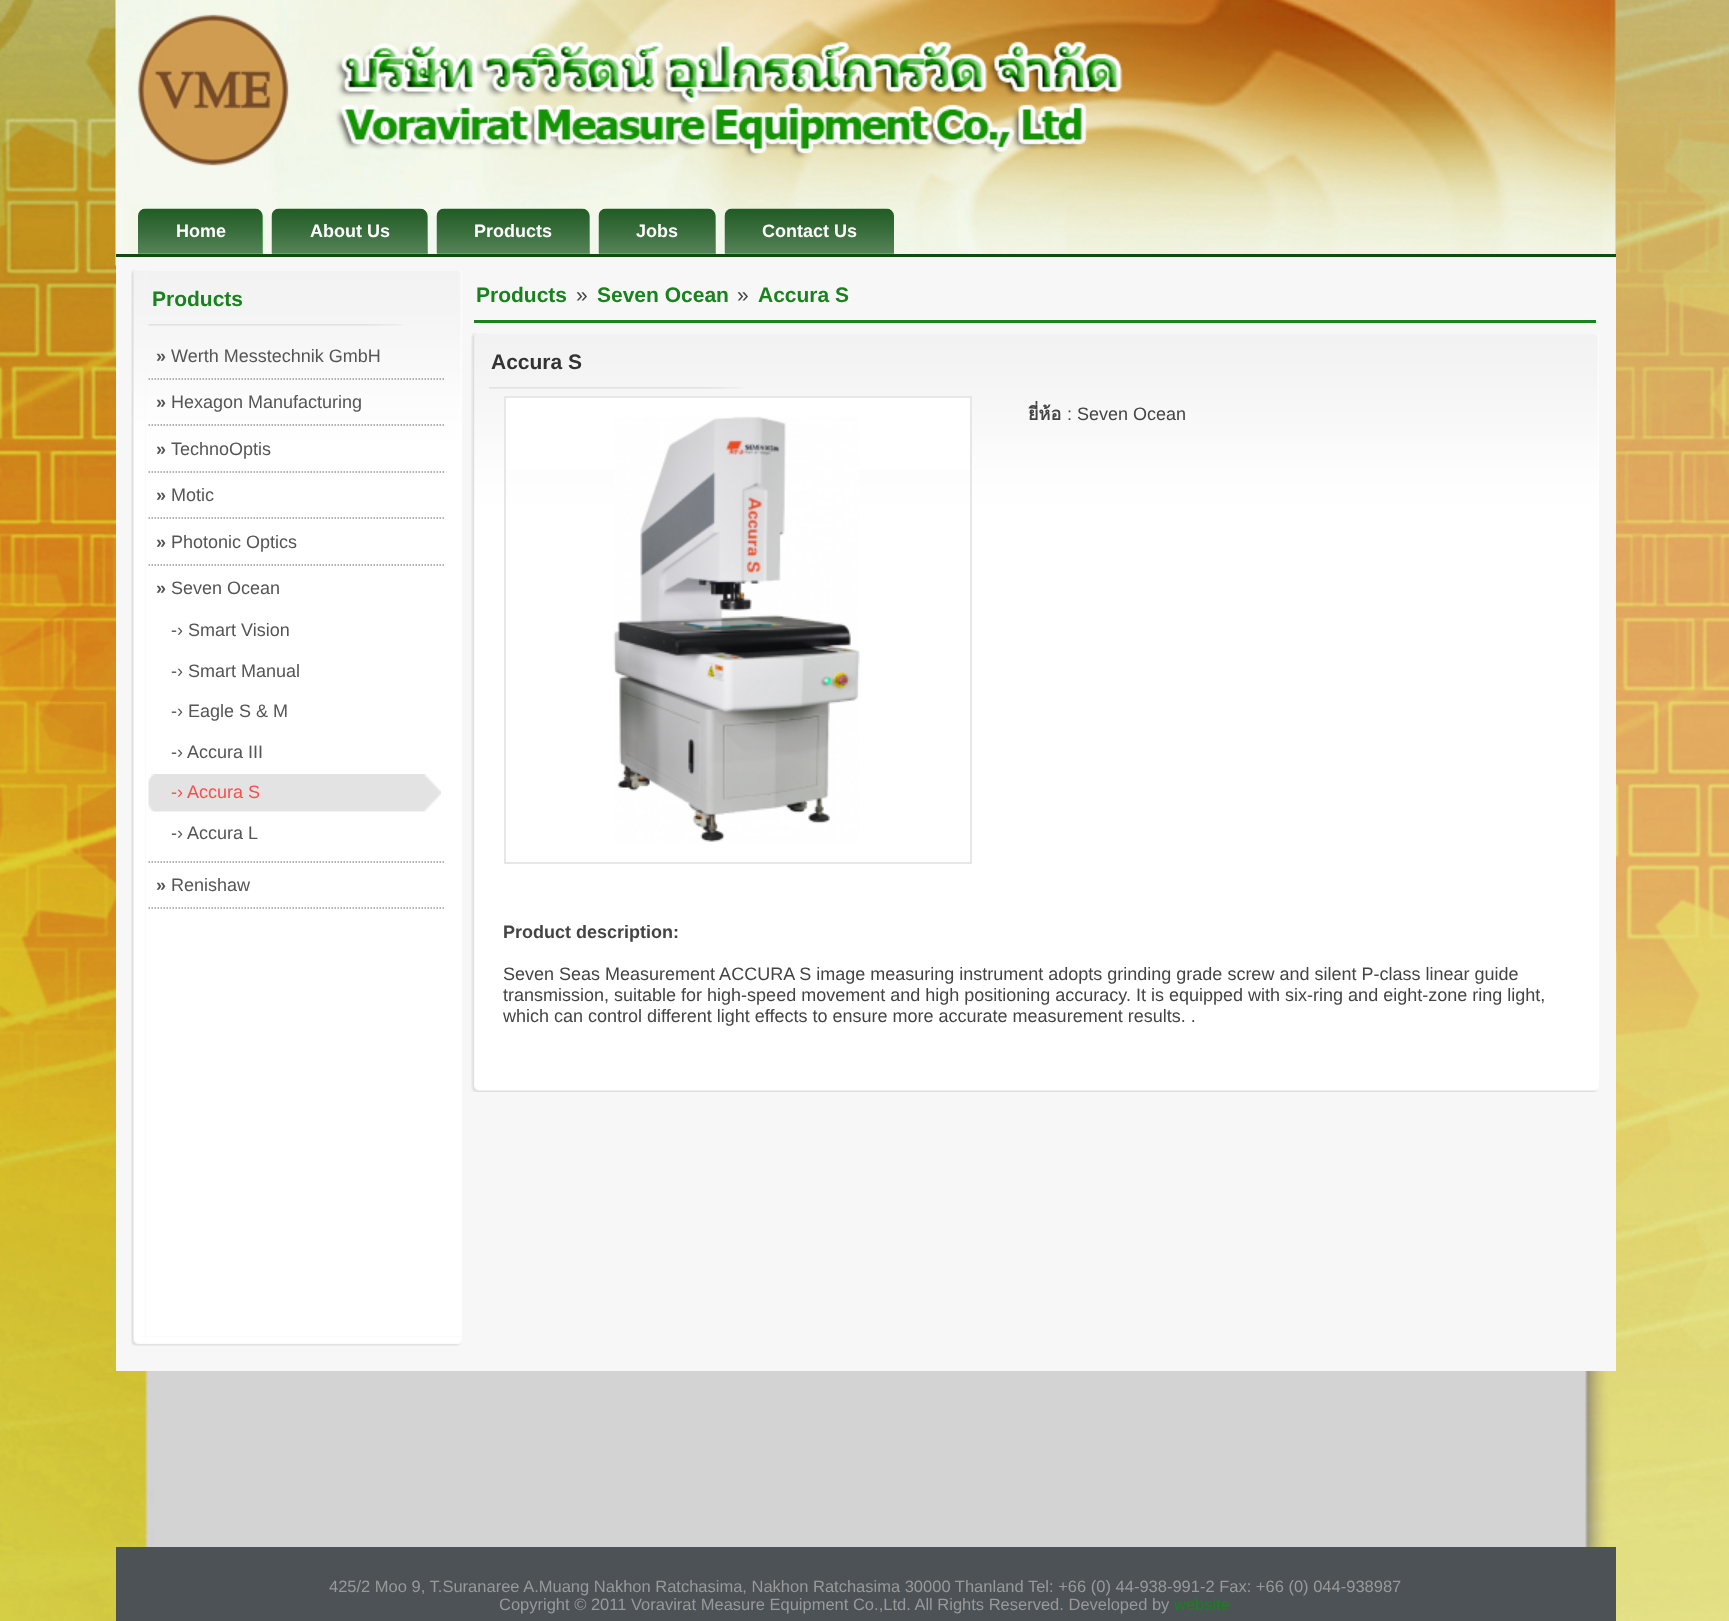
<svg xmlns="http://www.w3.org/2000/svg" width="1729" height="1621">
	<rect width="100%" height="100%" fill="#FFFFFF" />
	<image x="0" y="0" width="1729" height="1621" href="assets/img1.png" />
	<image x="115" y="0" width="1501" height="266" href="assets/img2.png" />
	<rect x="116" y="254" width="1500" height="3" fill="#0D4D10" />
	<path d="M146 209H255C259.5 209 263 212.5 263 217V254H138V217C138 212.5 141.5 209 146 209Z" fill="#67BC6B" />
	<image x="138" y="208" width="125" height="46" href="assets/img3.png" />
	<text x="176" y="237" font-family="Liberation Sans" font-size="18" font-weight="700" fill="#FFFFFF">Home</text>
	<path d="M280 209H420C424.5 209 428 212.5 428 217V254H272V217C272 212.5 275.5 209 280 209Z" fill="#67BC6B" />
	<image x="271" y="208" width="157" height="46" href="assets/img4.png" />
	<text x="310" y="237" font-family="Liberation Sans" font-size="18" font-weight="700" fill="#FFFFFF">About Us</text>
	<path d="M445 209H582C586.5 209 590 212.5 590 217V254H437V217C437 212.5 440.5 209 445 209Z" fill="#67BC6B" />
	<image x="436" y="208" width="154" height="46" href="assets/img5.png" />
	<text x="474" y="237" font-family="Liberation Sans" font-size="18" font-weight="700" fill="#FFFFFF">Products</text>
	<path d="M607 209H708C712.5 209 716 212.5 716 217V254H599V217C599 212.5 602.5 209 607 209Z" fill="#67BC6B" />
	<image x="598" y="208" width="118" height="46" href="assets/img6.png" />
	<text x="636" y="237" font-family="Liberation Sans" font-size="18" font-weight="700" fill="#FFFFFF">Jobs</text>
	<path d="M733 209H886C890.5 209 894 212.5 894 217V254H725V217C725 212.5 728.5 209 733 209Z" fill="#67BC6B" />
	<image x="724" y="208" width="170" height="46" href="assets/img7.png" />
	<text x="762" y="237" font-family="Liberation Sans" font-size="18" font-weight="700" fill="#FFFFFF">Contact Us</text>
	<rect x="116" y="257" width="1500" height="1114" fill="#F7F7F7" />
	<image x="131" y="269" width="15" height="1068" href="assets/img8.png" />
	<image x="146" y="271" width="316" height="1066" href="assets/img9.png" />
	<image x="148" y="324" width="255" height="2" href="assets/img10.png" />
	<text x="152" y="306" font-family="Liberation Sans" font-size="21" font-weight="700" fill="#19821E">Products</text>
	<path d="M148.5 379H444" fill="none" stroke="#999999" stroke-width="1.5" stroke-dasharray="1.5 1.5" />
	<text x="156" y="362" font-family="Liberation Sans" font-size="18" font-weight="700" fill="#555555">»</text>
	<text x="171" y="362" font-family="Liberation Sans" font-size="18" fill="#555555">Werth Messtechnik GmbH</text>
	<path d="M148.5 425H444" fill="none" stroke="#999999" stroke-width="1.5" stroke-dasharray="1.5 1.5" />
	<text x="156" y="408" font-family="Liberation Sans" font-size="18" font-weight="700" fill="#555555">»</text>
	<text x="171" y="408" font-family="Liberation Sans" font-size="18" fill="#555555">Hexagon Manufacturing</text>
	<path d="M148.5 472H444" fill="none" stroke="#999999" stroke-width="1.5" stroke-dasharray="1.5 1.5" />
	<text x="156" y="455" font-family="Liberation Sans" font-size="18" font-weight="700" fill="#555555">»</text>
	<text x="171" y="455" font-family="Liberation Sans" font-size="18" fill="#555555">TechnoOptis</text>
	<path d="M148.5 518H444" fill="none" stroke="#999999" stroke-width="1.5" stroke-dasharray="1.5 1.5" />
	<text x="156" y="501" font-family="Liberation Sans" font-size="18" font-weight="700" fill="#555555">»</text>
	<text x="171" y="501" font-family="Liberation Sans" font-size="18" fill="#555555">Motic</text>
	<path d="M148.5 565H444" fill="none" stroke="#999999" stroke-width="1.5" stroke-dasharray="1.5 1.5" />
	<text x="156" y="548" font-family="Liberation Sans" font-size="18" font-weight="700" fill="#555555">»</text>
	<text x="171" y="548" font-family="Liberation Sans" font-size="18" fill="#555555">Photonic Optics</text>
	<path d="M148.5 862H444" fill="none" stroke="#999999" stroke-width="1.5" stroke-dasharray="1.5 1.5" />
	<text x="156" y="594" font-family="Liberation Sans" font-size="18" font-weight="700" fill="#555555">»</text>
	<g font-family="Liberation Sans" font-size="18" fill="#555555">
		<text x="171" y="594">Seven Ocean</text>
		<text x="171" y="636">-› Smart Vision</text>
		<text x="171" y="677">-› Smart Manual</text>
		<text x="171" y="717">-› Eagle S &amp; M</text>
		<text x="171" y="758">-› Accura III</text>
	</g>
	<image x="148" y="774" width="293" height="38" href="assets/img11.png" />
	<text x="171" y="798" font-family="Liberation Sans" font-size="18" fill="#FB4D4D">-› Accura S</text>
	<text x="171" y="839" font-family="Liberation Sans" font-size="18" fill="#555555">-› Accura L</text>
	<path d="M148.5 908H444" fill="none" stroke="#999999" stroke-width="1.5" stroke-dasharray="1.5 1.5" />
	<text x="156" y="891" font-family="Liberation Sans" font-size="18" font-weight="700" fill="#555555">»</text>
	<text x="171" y="891" font-family="Liberation Sans" font-size="18" fill="#555555">Renishaw</text>
	<image x="131" y="1336" width="15" height="10" href="assets/img12.png" />
	<image x="145" y="1337" width="317" height="9" href="assets/img13.png" />
	<rect x="474" y="320" width="1122" height="3" fill="#19821E" />
	<text x="476" y="302" font-family="Liberation Sans" font-size="21" font-weight="700" fill="#19821E">Products</text>
	<text x="576" y="302" font-family="Liberation Sans" font-size="21" fill="#444444">»</text>
	<text x="597" y="302" font-family="Liberation Sans" font-size="21" font-weight="700" fill="#19821E">Seven Ocean</text>
	<text x="737" y="302" font-family="Liberation Sans" font-size="21" fill="#444444">»</text>
	<text x="758" y="302" font-family="Liberation Sans" font-size="21" font-weight="700" fill="#19821E">Accura S</text>
	<image x="471" y="332" width="15" height="751" href="assets/img14.png" />
	<image x="486" y="334" width="1113" height="749" href="assets/img15.png" />
	<image x="489" y="387" width="254" height="2" href="assets/img16.png" />
	<text x="491" y="369" font-family="Liberation Sans" font-size="21" font-weight="700" fill="#333333">Accura S</text>
	<rect x="506" y="398" width="464" height="72" fill="#FFFFFF" />
	<rect x="505" y="397" width="466" height="466" fill="none" stroke="#E7E7E7" stroke-width="2" />
	<image x="613" y="416" width="247" height="426" href="assets/img17.png" />
	<text x="1028" y="420" font-family="Loma" font-size="18" font-weight="700" fill="#444444">ยี่ห้อ</text>
	<text x="1067" y="420" font-family="Liberation Sans" font-size="18" fill="#444444">: Seven Ocean</text>
	<text x="503" y="938" font-family="Liberation Sans" font-size="18" font-weight="700" fill="#444444">Product description:</text>
	<g font-family="Liberation Sans" font-size="18" fill="#444444">
		<text x="503" y="980">Seven Seas Measurement ACCURA S image measuring instrument adopts grinding grade screw and silent P-class linear guide</text>
		<text x="503" y="1001">transmission, suitable for high-speed movement and high positioning accuracy. It is equipped with six-ring and eight-zone ring light,</text>
		<text x="503" y="1022">which can control different light effects to ensure more accurate measurement results. .</text>
	</g>
	<image x="471" y="1083" width="15" height="9" href="assets/img18.png" />
	<image x="486" y="1083" width="1113" height="9" href="assets/img19.png" />
	<rect x="116" y="1547" width="1500" height="74" fill="#4D5257" />
	<g font-family="Liberation Sans" font-size="16.5" fill="#999999">
		<text x="329" y="1592">425/2 Moo 9, T.Suranaree A.Muang Nakhon Ratchasima, Nakhon Ratchasima 30000 Thanland Tel: +66 (0) 44-938-991-2 Fax: +66 (0) 044-938987</text>
		<text x="499" y="1610">Copyright © 2011 Voravirat Measure Equipment Co.,Ltd. All Rights Reserved. Developed by</text>
	</g>
	<text x="1174" y="1610" font-family="Liberation Sans" font-size="16.5" fill="#19821E">website</text>
</svg>
